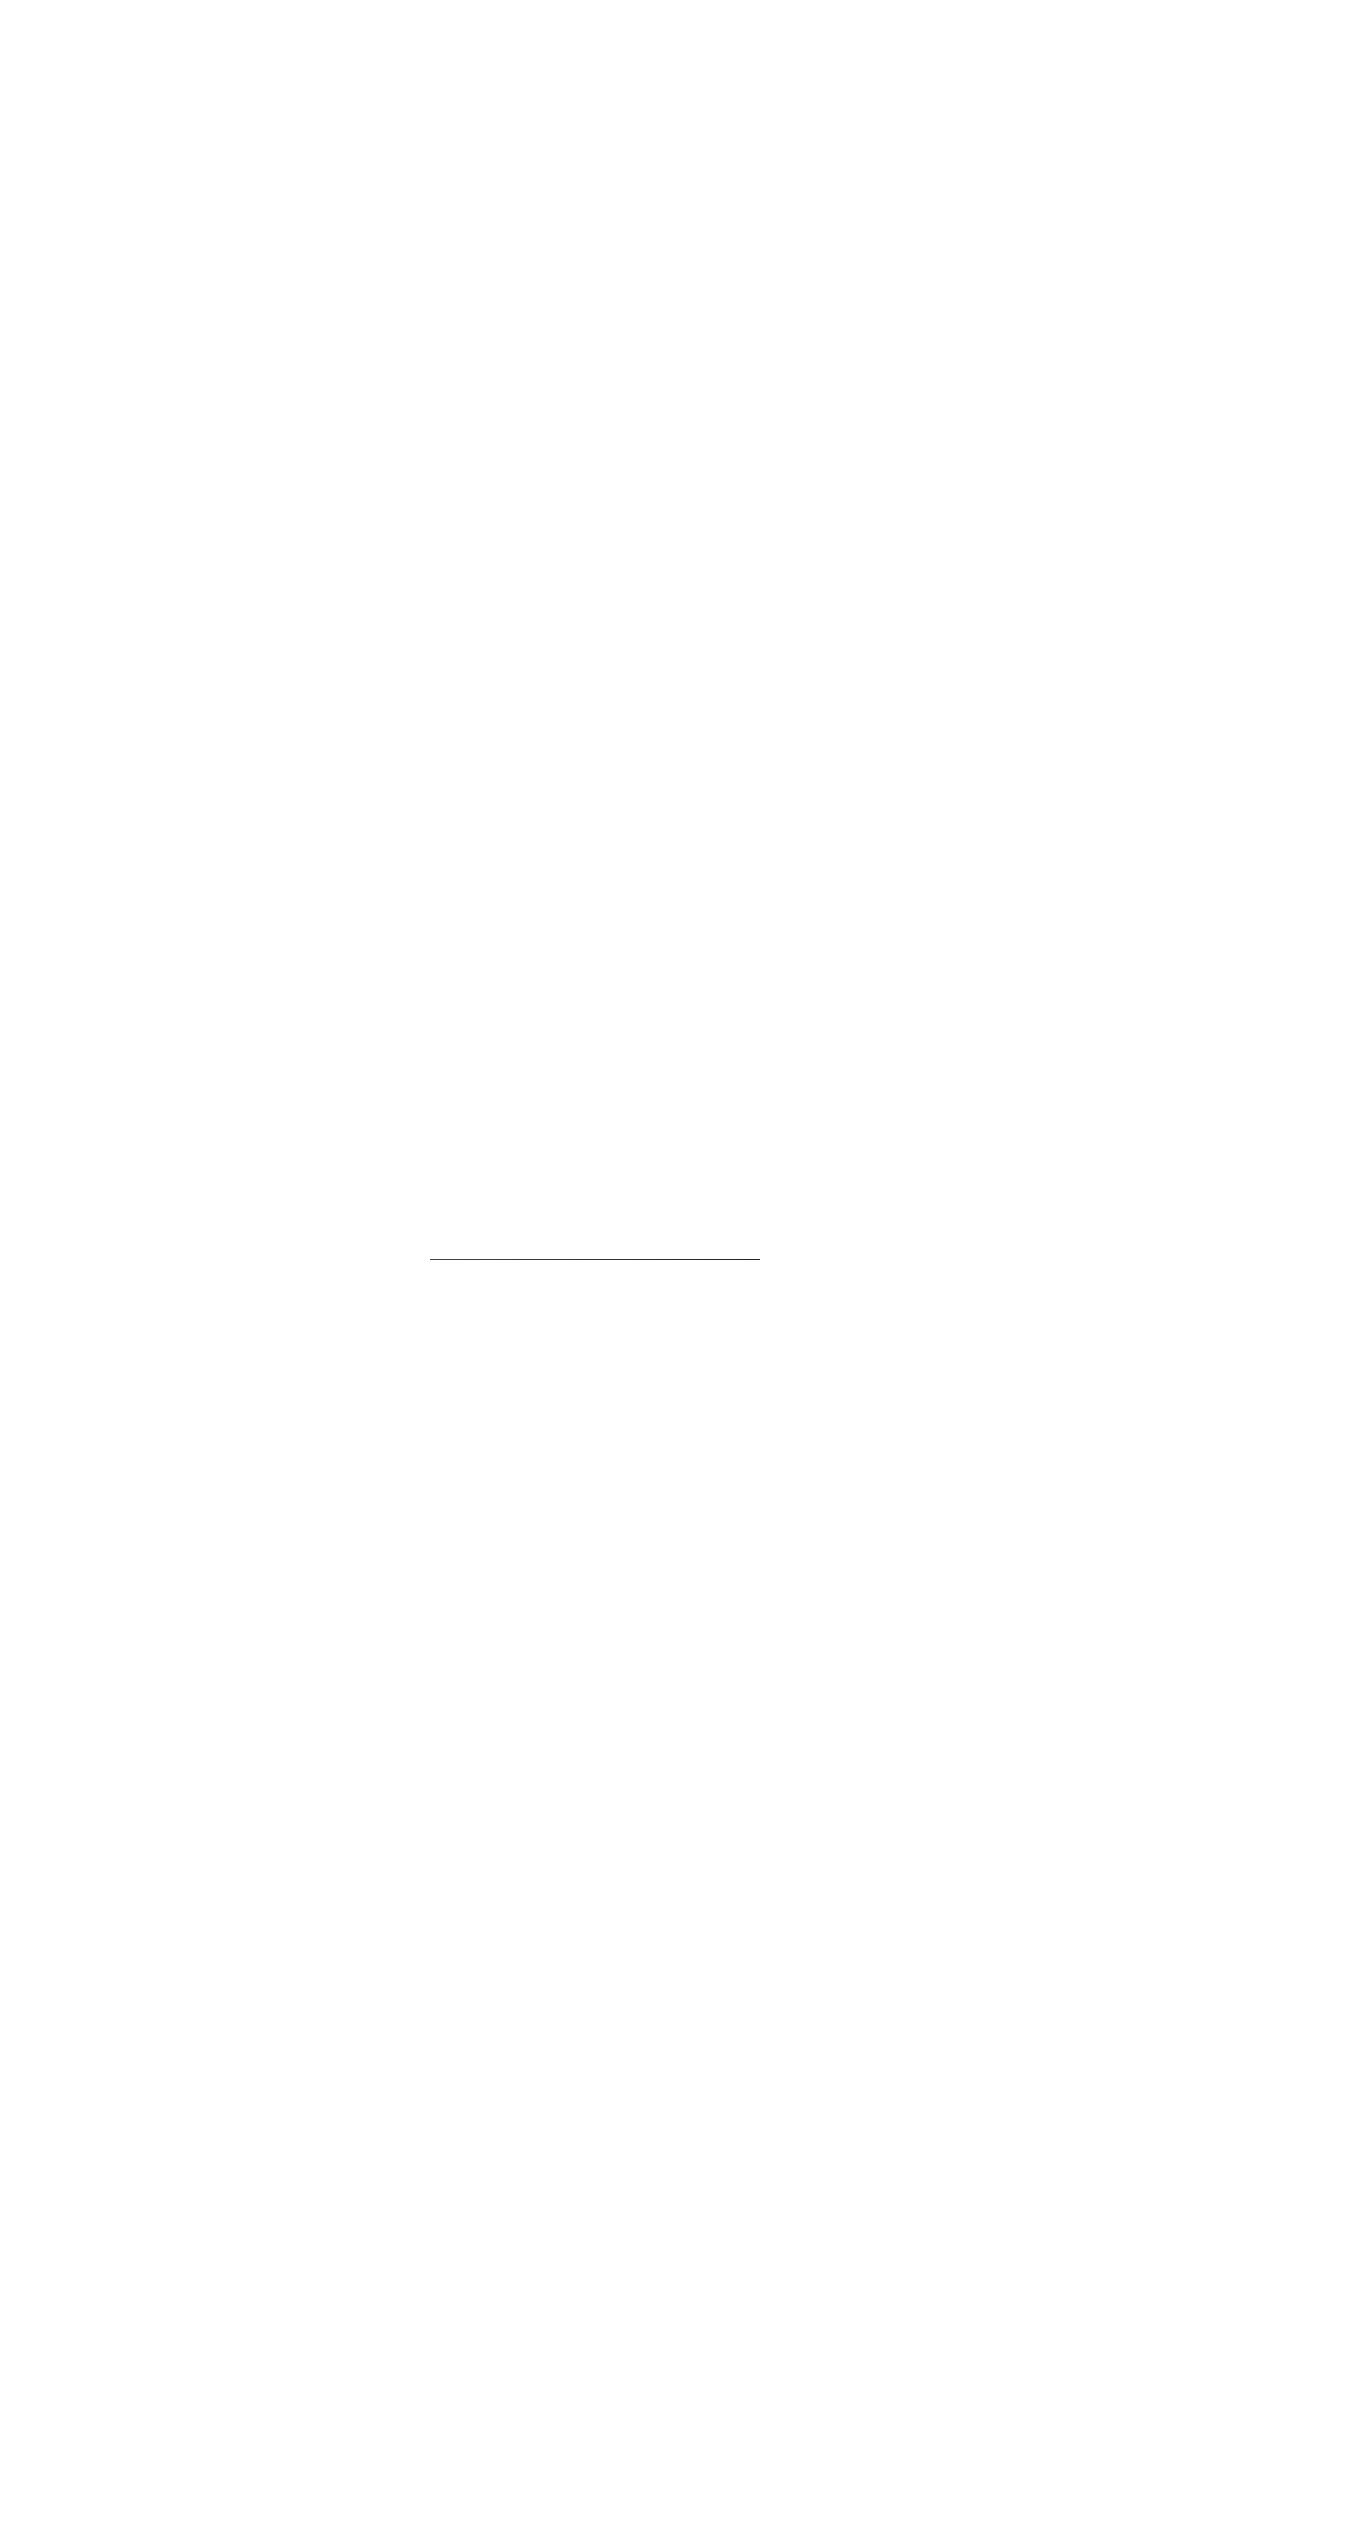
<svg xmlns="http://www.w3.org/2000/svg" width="1359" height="2522">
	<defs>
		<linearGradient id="g1" gradientUnits="userSpaceOnUse" x1="512" y1="1342" x2="678" y2="1177"><stop offset="0" stop-color="#5E2F6D" /><stop offset="1" stop-color="#301838" /></linearGradient>
	</defs>
	<rect width="100%" height="100%" fill="#FFFFFF" />
	<rect x="430" y="1259" width="330" height="1" fill="url(#g1)" />
</svg>
